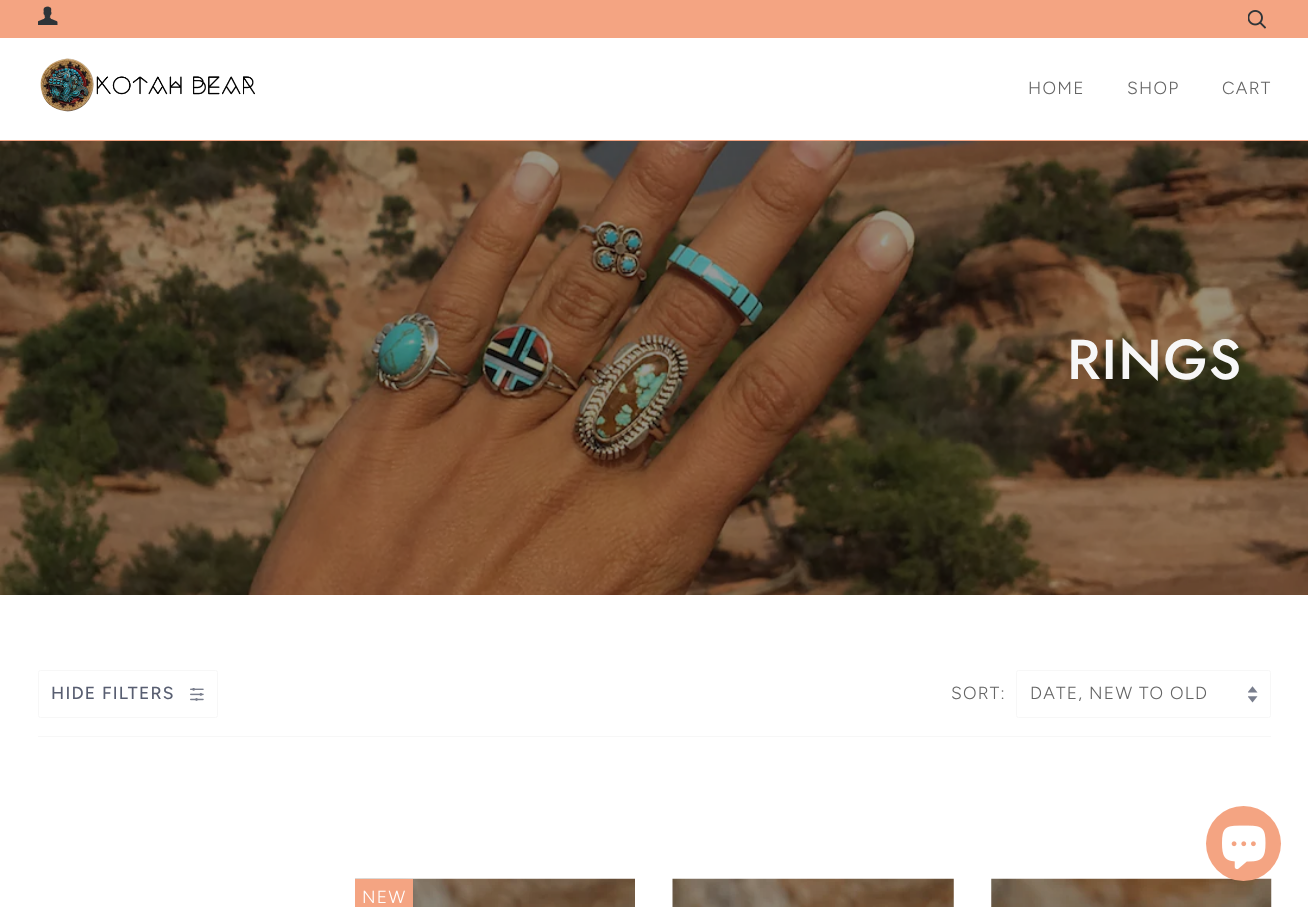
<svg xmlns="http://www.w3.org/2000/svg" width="1308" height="907">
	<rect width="100%" height="100%" fill="#FFFFFF" />
	<rect x="0" y="0" width="1308" height="38" fill="#F4A482" />
	<image x="38" y="6" width="20" height="19" href="assets/img1.png" />
	<image x="1248" y="10" width="18" height="19" href="assets/img2.png" />
	<rect x="0" y="140" width="1308" height="1" fill="#F4A482" />
	<image x="40" y="58" width="215" height="54" href="assets/img3.png" />
	<g font-family="Figtree" font-size="17.5" font-weight="300" letter-spacing="1.25" fill="#656565">
		<text x="1028" y="94">HOME</text>
		<text x="1127" y="94">SHOP</text>
		<text x="1222" y="94">CART</text>
	</g>
	<image x="0" y="141" width="1308" height="454" href="assets/img4.png" />
	<text x="1067" y="379" font-family="Jost" font-size="56" font-weight="500" letter-spacing="1.25" fill="#F7F7F7">RINGS</text>
	<rect x="38.5" y="670.5" width="179" height="47" rx="2" fill="none" stroke="#F7F7F7" />
	<text x="51" y="699" font-family="Figtree" font-size="17.5" font-weight="500" letter-spacing="1.25" fill="#585E71">HIDE FILTERS</text>
	<image x="190" y="688" width="14" height="13" href="assets/img5.png" />
	<text x="951" y="699" font-family="Figtree" font-size="17.5" font-weight="300" letter-spacing="1.25" fill="#656565">SORT:</text>
	<image x="1248" y="686" width="10" height="17" href="assets/img6.png" />
	<rect x="1016.5" y="670.5" width="254" height="47" rx="2" fill="none" stroke="#F7F7F7" />
	<text x="1030" y="699" font-family="Figtree" font-size="17.5" font-weight="300" letter-spacing="1.25" fill="#656565">DATE, NEW TO OLD</text>
	<rect x="38" y="736" width="1233" height="1" fill="#F7F7F7" />
	<image x="355" y="878" width="280" height="29" href="assets/img7.png" />
	<rect x="355" y="879" width="58" height="28" fill="#F4A482" />
	<text x="362" y="903" font-family="Figtree" font-size="17.5" font-weight="300" letter-spacing="1.25" fill="#FFFFFF">NEW</text>
	<image x="672" y="878" width="282" height="29" href="assets/img8.png" />
	<image x="991" y="878" width="281" height="29" href="assets/img9.png" />
	<circle cx="1243.5" cy="843.5" r="37.5" fill="#F4A482" />
	<image x="1222" y="825" width="44" height="45" href="assets/img10.png" />
</svg>
